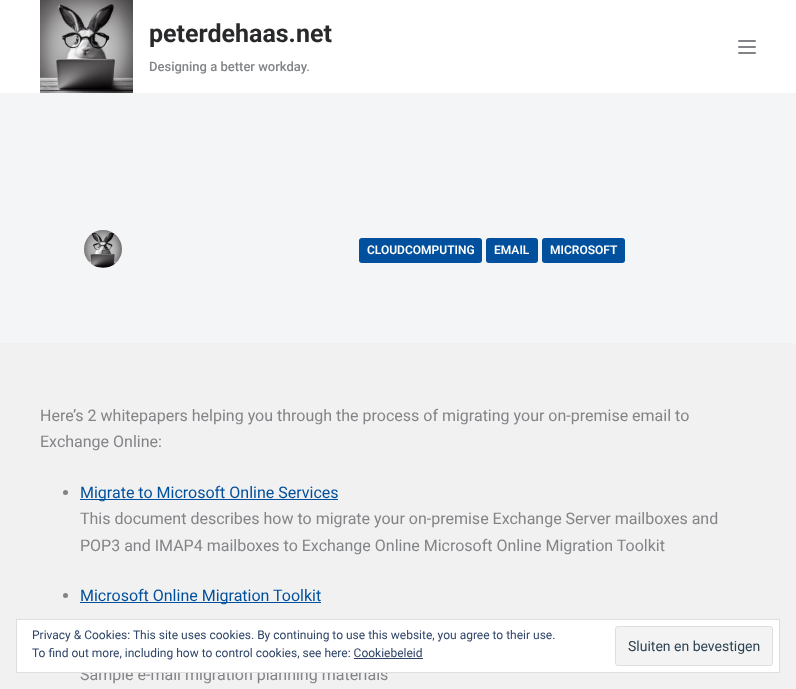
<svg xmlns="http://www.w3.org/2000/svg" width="796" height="689">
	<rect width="100%" height="100%" fill="#F1F1F1" />
	<rect x="0" y="0" width="796" height="93" fill="#FFFFFF" />
	<image x="40" y="0" width="93" height="93" href="assets/img1.png" />
	<text x="149" y="42" font-family="Roboto" font-size="25" font-weight="700" fill="#28292A">peterdehaas.net</text>
	<text x="149" y="71" font-family="Roboto" font-size="13" font-weight="500" fill="#828487">Designing a better workday.</text>
	<rect x="738" y="40" width="18" height="2" rx="1" fill="#828487" />
	<rect x="738" y="46" width="18" height="2" rx="1" fill="#828487" />
	<rect x="738" y="52" width="18" height="2" rx="1" fill="#828487" />
	<rect x="0" y="93" width="796" height="250" fill="#F4F5F6" />
	<image x="84" y="230" width="38" height="38" href="assets/img2.png" />
	<rect x="359" y="238" width="123" height="25" rx="3" fill="#00509D" />
	<text x="367" y="254" font-family="Roboto" font-size="12" font-weight="600" fill="#FFFFFF">CLOUDCOMPUTING</text>
	<rect x="486" y="238" width="52" height="25" rx="3" fill="#00509D" />
	<text x="494" y="254" font-family="Roboto" font-size="12" font-weight="600" fill="#FFFFFF">EMAIL</text>
	<rect x="542" y="238" width="83" height="25" rx="3" fill="#00509D" />
	<text x="550" y="254" font-family="Roboto" font-size="12" font-weight="600" fill="#FFFFFF">MICROSOFT</text>
	<g font-family="Roboto" font-size="16" fill="#828487">
		<text x="40" y="421">Here’s 2 whitepapers helping you through the process of migrating your on-premise email to</text>
		<text x="40" y="447">Exchange Online:</text>
	</g>
	<circle cx="65.5" cy="492.5" r="2.5" fill="#828487" />
	<rect x="80" y="499" width="258" height="1" fill="#00509D" />
	<text x="80" y="498" font-family="Roboto" font-size="16" fill="#00509D">Migrate to Microsoft Online Services</text>
	<g font-family="Roboto" font-size="16" fill="#828487">
		<text x="80" y="524">This document describes how to migrate your on-premise Exchange Server mailboxes and</text>
		<text x="80" y="551">POP3 and IMAP4 mailboxes to Exchange Online Microsoft Online Migration Toolkit</text>
	</g>
	<circle cx="65.5" cy="595.5" r="2.5" fill="#828487" />
	<rect x="80" y="602" width="241" height="1" fill="#00509D" />
	<text x="80" y="601" font-family="Roboto" font-size="16" fill="#00509D">Microsoft Online Migration Toolkit</text>
	<text x="80" y="680" font-family="Roboto" font-size="16" fill="#828487">Sample e-mail migration planning materials</text>
	<rect x="16.5" y="619.5" width="763" height="53" fill="#FFFFFF" stroke="#DEDEDE" />
	<g font-family="Roboto" font-size="12" fill="#2E4467">
		<text x="32" y="639">Privacy &amp; Cookies: This site uses cookies. By continuing to use this website, you agree to their use.</text>
		<text x="32" y="657">To find out more, including how to control cookies, see here: Cookiebeleid</text>
	</g>
	<rect x="615.5" y="626.5" width="157" height="39" rx="2.5" fill="#F3F3F3" stroke="#DEDEDE" />
	<text x="628" y="651" font-family="Roboto" font-size="14" fill="#2E4453">Sluiten en bevestigen</text>
	<rect x="354" y="658" width="69" height="1" fill="#2E4467" />
</svg>
